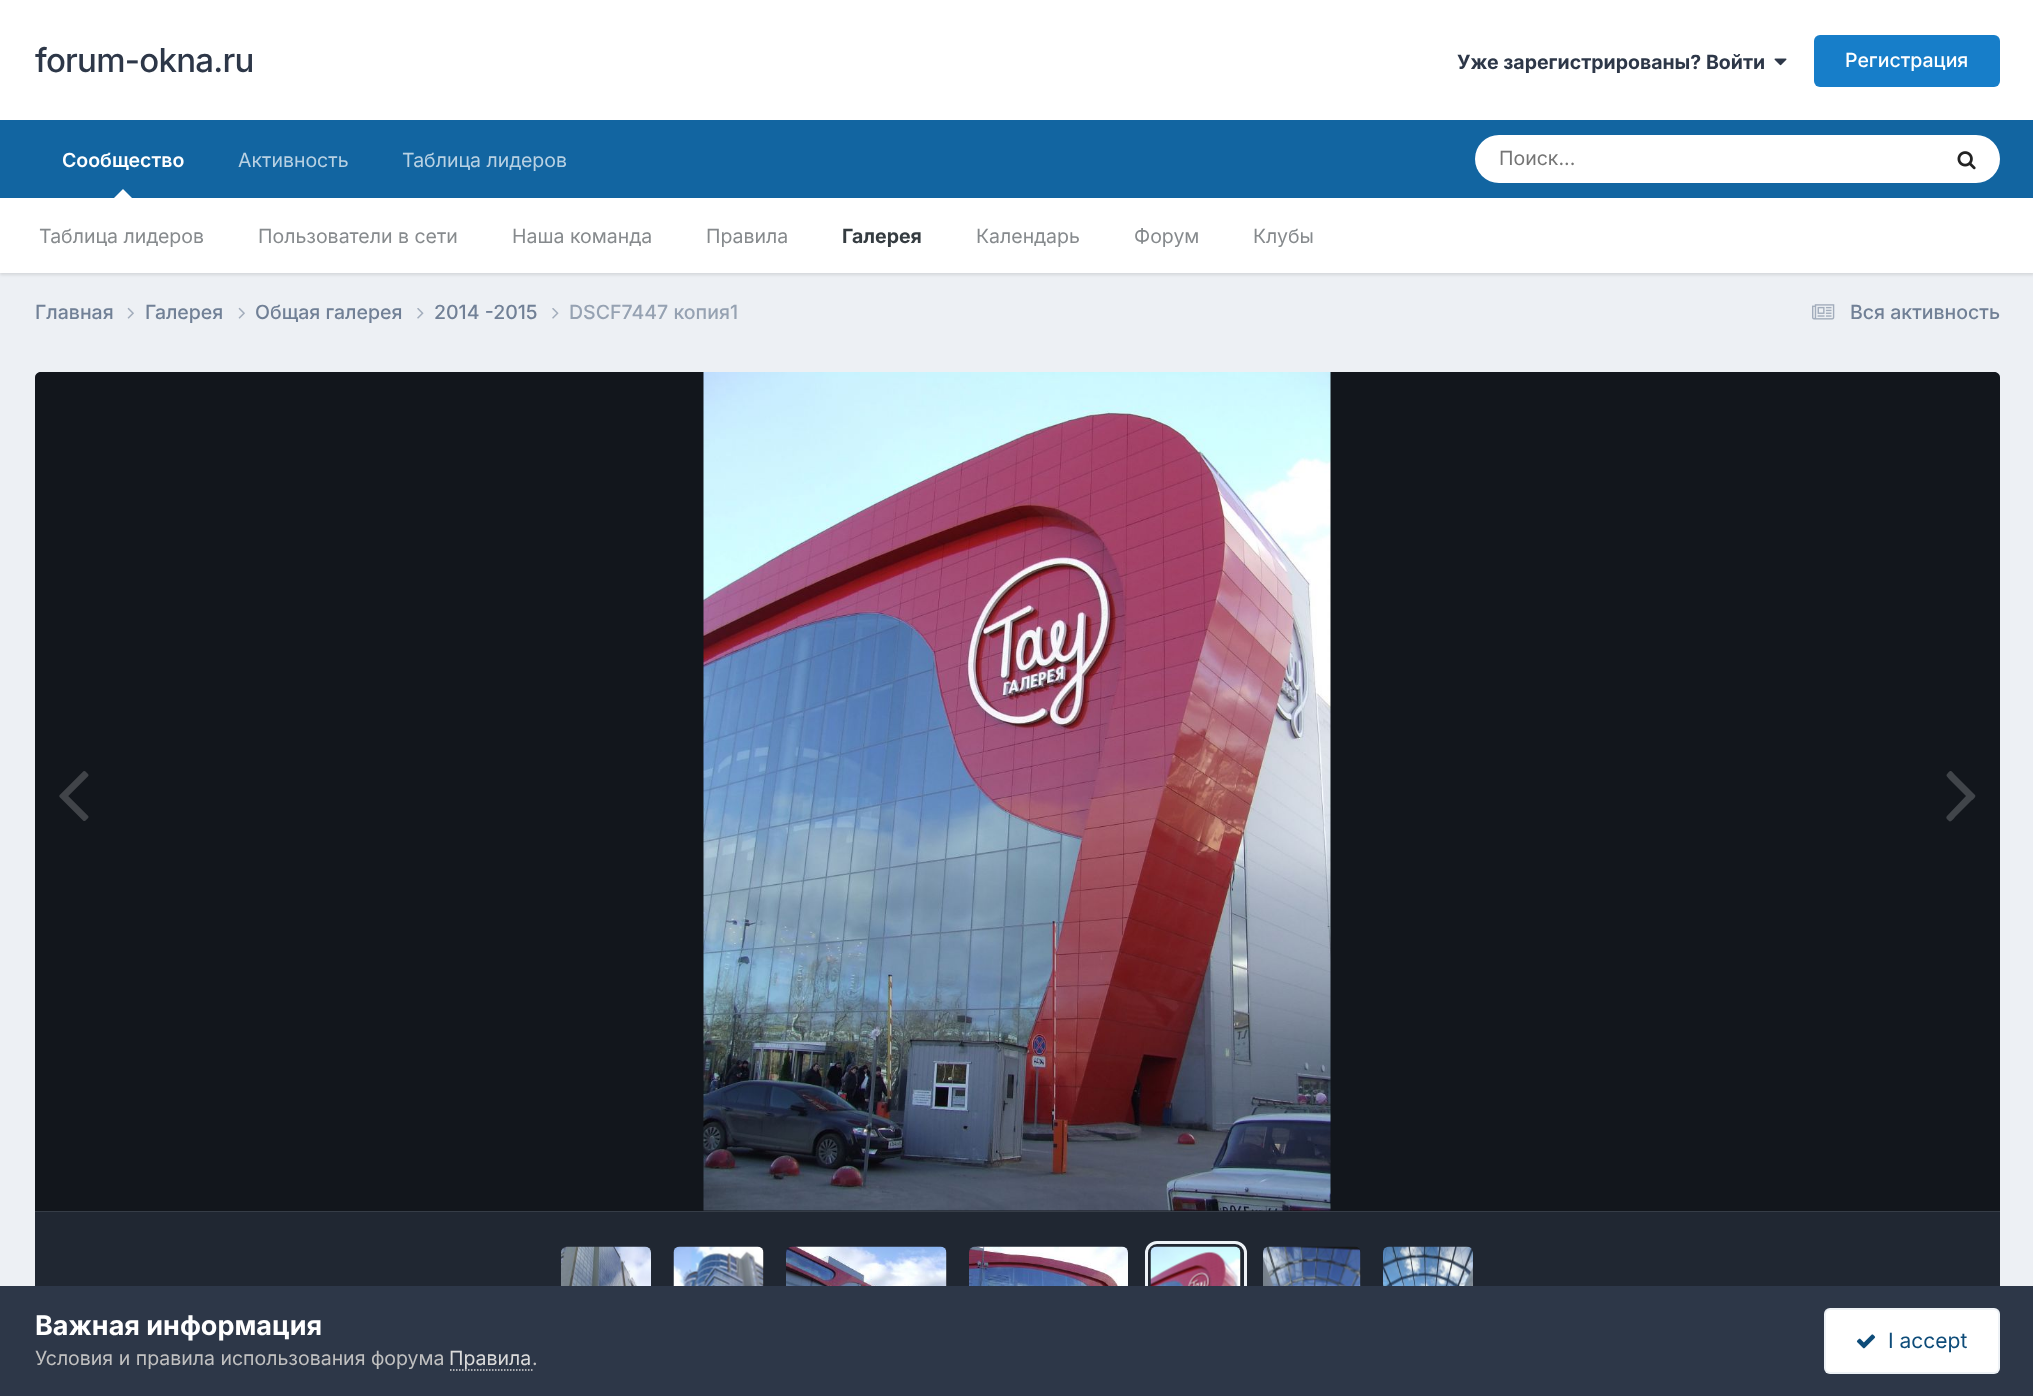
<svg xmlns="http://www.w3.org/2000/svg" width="2033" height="1396">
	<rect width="100%" height="100%" fill="#EDF0F4" />
	<rect x="0" y="0" width="2033" height="120" fill="#FFFFFF" />
	<text x="35" y="72" font-family="Inter" font-size="33" font-weight="500" letter-spacing="-0.75" fill="#2D3748">forum-okna.ru</text>
	<text x="1457" y="69" font-family="Inter" font-size="19.5" font-weight="700" fill="#2D3748">Уже зарегистрированы? Войти</text>
	<image x="1774" y="58" width="13" height="8" href="assets/img1.png" />
	<rect x="1814" y="35" width="186" height="52" rx="6" fill="#177EC9" />
	<text x="1845" y="67" font-family="Inter" font-size="19.5" font-weight="500" fill="#FFFFFF">Регистрация</text>
	<rect x="0" y="120" width="2033" height="78" fill="#1265A1" />
	<text x="62" y="167" font-family="Inter" font-size="19.5" font-weight="600" fill="#FFFFFF">Сообщество</text>
	<rect x="0" y="200" width="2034" height="75" fill="#000000" fill-opacity="0.1" filter="blur(1.5px)" />
	<path d="M132 198H114L123 189Z" fill="#FFFFFF" />
	<rect x="0" y="198" width="2033" height="75" fill="#FFFFFF" />
	<g font-family="Inter" font-size="19.5" fill="#868A8D">
		<text x="39" y="243">Таблица лидеров</text>
		<text x="258" y="243">Пользователи в сети</text>
		<text x="512" y="243">Наша команда</text>
		<text x="706" y="243">Правила</text>
	</g>
	<text x="842" y="243" font-family="Inter" font-size="19.5" font-weight="700" fill="#353C41">Галерея</text>
	<g font-family="Inter" font-size="19.5" fill="#868A8D">
		<text x="976" y="243">Календарь</text>
		<text x="1134" y="243">Форум</text>
		<text x="1253" y="243">Клубы</text>
	</g>
	<g font-family="Inter" font-size="19.5" fill="#B8D1E3">
		<text x="238" y="167">Активность</text>
		<text x="402" y="167">Таблица лидеров</text>
	</g>
	<rect x="1475" y="135" width="525" height="48" rx="24" fill="#FFFFFF" />
	<text x="1499" y="165" font-family="Inter" font-size="19.5" fill="#757575">Поиск...</text>
	<image x="1957" y="151" width="19" height="19" href="assets/img2.png" />
	<text x="35" y="319" font-family="Inter" font-size="19.5" font-weight="500" fill="#718096">Главная</text>
	<image x="127" y="307" width="7" height="12" href="assets/img3.png" />
	<text x="145" y="319" font-family="Inter" font-size="19.5" font-weight="500" fill="#718096">Галерея</text>
	<image x="238" y="307" width="7" height="12" href="assets/img3.png" />
	<text x="255" y="319" font-family="Inter" font-size="19.5" font-weight="500" fill="#718096">Общая галерея</text>
	<image x="417" y="308" width="7" height="11" href="assets/img4.png" />
	<text x="434" y="319" font-family="Inter" font-size="19.5" font-weight="500" fill="#718096">2014 -2015</text>
	<image x="552" y="308" width="7" height="11" href="assets/img4.png" />
	<text x="569" y="319" font-family="Inter" font-size="19.5" font-weight="500" fill="#96A2B2">DSCF7447 копия1</text>
	<image x="1812" y="304" width="23" height="16" href="assets/img5.png" />
	<text x="1850" y="319" font-family="Inter" font-size="19.5" font-weight="500" fill="#718096">Вся активность</text>
	<path d="M41 372H1994C1997.5 372 2000 374.5 2000 378V1211H35V378C35 374.5 37.5 372 41 372Z" fill="#2D3748" />
	<path d="M41 372H1994C1997.5 372 2000 374.5 2000 378V1211H35V378C35 374.5 37.5 372 41 372Z" fill="#000000" fill-opacity="0.6" />
	<image x="703" y="372" width="628" height="839" href="assets/img6.png" />
	<image x="59" y="771" width="30" height="50" href="assets/img7.png" />
	<path d="M1975 795C1977 797 1971 801 1971 801L1955 817C1955 817 1951 823 1949 821C1948 820 1945 818 1947 816L1966 796L1950 780C1947 776 1945 776 1948 773C1951 769 1952 772 1955 775Z" fill="#41454A" />
	<rect x="35" y="1212" width="1965" height="74" fill="#202732" />
	<rect x="35" y="1211" width="1965" height="1" fill="#363D47" />
	<image x="561" y="1246" width="90" height="40" href="assets/img8.png" />
	<rect x="674" y="1247" width="90" height="120" rx="6" fill="#141414" />
	<rect x="674" y="1247" width="90" height="120" rx="6" fill="#2D3748" fill-opacity="0.3" />
	<image x="673" y="1246" width="91" height="40" href="assets/img9.png" />
	<rect x="786" y="1247" width="161" height="120" rx="6" fill="#141414" />
	<rect x="786" y="1247" width="161" height="120" rx="6" fill="#2D3748" fill-opacity="0.3" />
	<image x="786" y="1246" width="161" height="40" href="assets/img10.png" />
	<image x="969" y="1246" width="159" height="40" href="assets/img11.png" />
	<rect x="1151" y="1247" width="90" height="120" rx="6" fill="#141414" />
	<rect x="1151" y="1247" width="90" height="120" rx="6" fill="#2D3748" fill-opacity="0.3" />
	<rect x="1146.5" y="1242.5" width="99" height="129" rx="10.5" fill="none" stroke="#EDF2F7" stroke-width="3" />
	<image x="1150" y="1246" width="91" height="40" href="assets/img12.png" />
	<rect x="1263" y="1247" width="98" height="120" rx="6" fill="#141414" />
	<rect x="1263" y="1247" width="98" height="120" rx="6" fill="#2D3748" fill-opacity="0.3" />
	<image x="1263" y="1246" width="98" height="40" href="assets/img13.png" />
	<image x="1383" y="1246" width="90" height="40" href="assets/img14.png" />
	<rect x="0" y="1286" width="2033" height="110" fill="#2D3748" />
	<text x="35" y="1335" font-family="Inter" font-size="27" font-weight="700" fill="#FFFFFF">Важная информация</text>
	<text x="35" y="1365" font-family="Inter" font-size="19.5" fill="#C0C0C0">Условия и правила использования форума</text>
	<text x="449" y="1365" font-family="Inter" font-size="19.5" fill="#DADADA">Правила</text>
	<path d="M450 1370H532.5" fill="none" stroke="#DADADA" stroke-width="1.5" stroke-dasharray="1.5 1.5" />
	<text x="532" y="1365" font-family="Inter" font-size="19.5" fill="#C0C0C0">.</text>
	<rect x="1824" y="1308" width="176" height="66" rx="6" fill="#FFFFFF" />
	<rect x="1825" y="1309" width="174" height="64" rx="5" fill="none" stroke="#0E4C79" stroke-opacity="0.07" stroke-width="2" />
	<image x="1856" y="1334" width="20" height="15" href="assets/img15.png" />
	<text x="1888" y="1348" font-family="Inter" font-size="21" fill="#0E4C79">I accept</text>
</svg>
